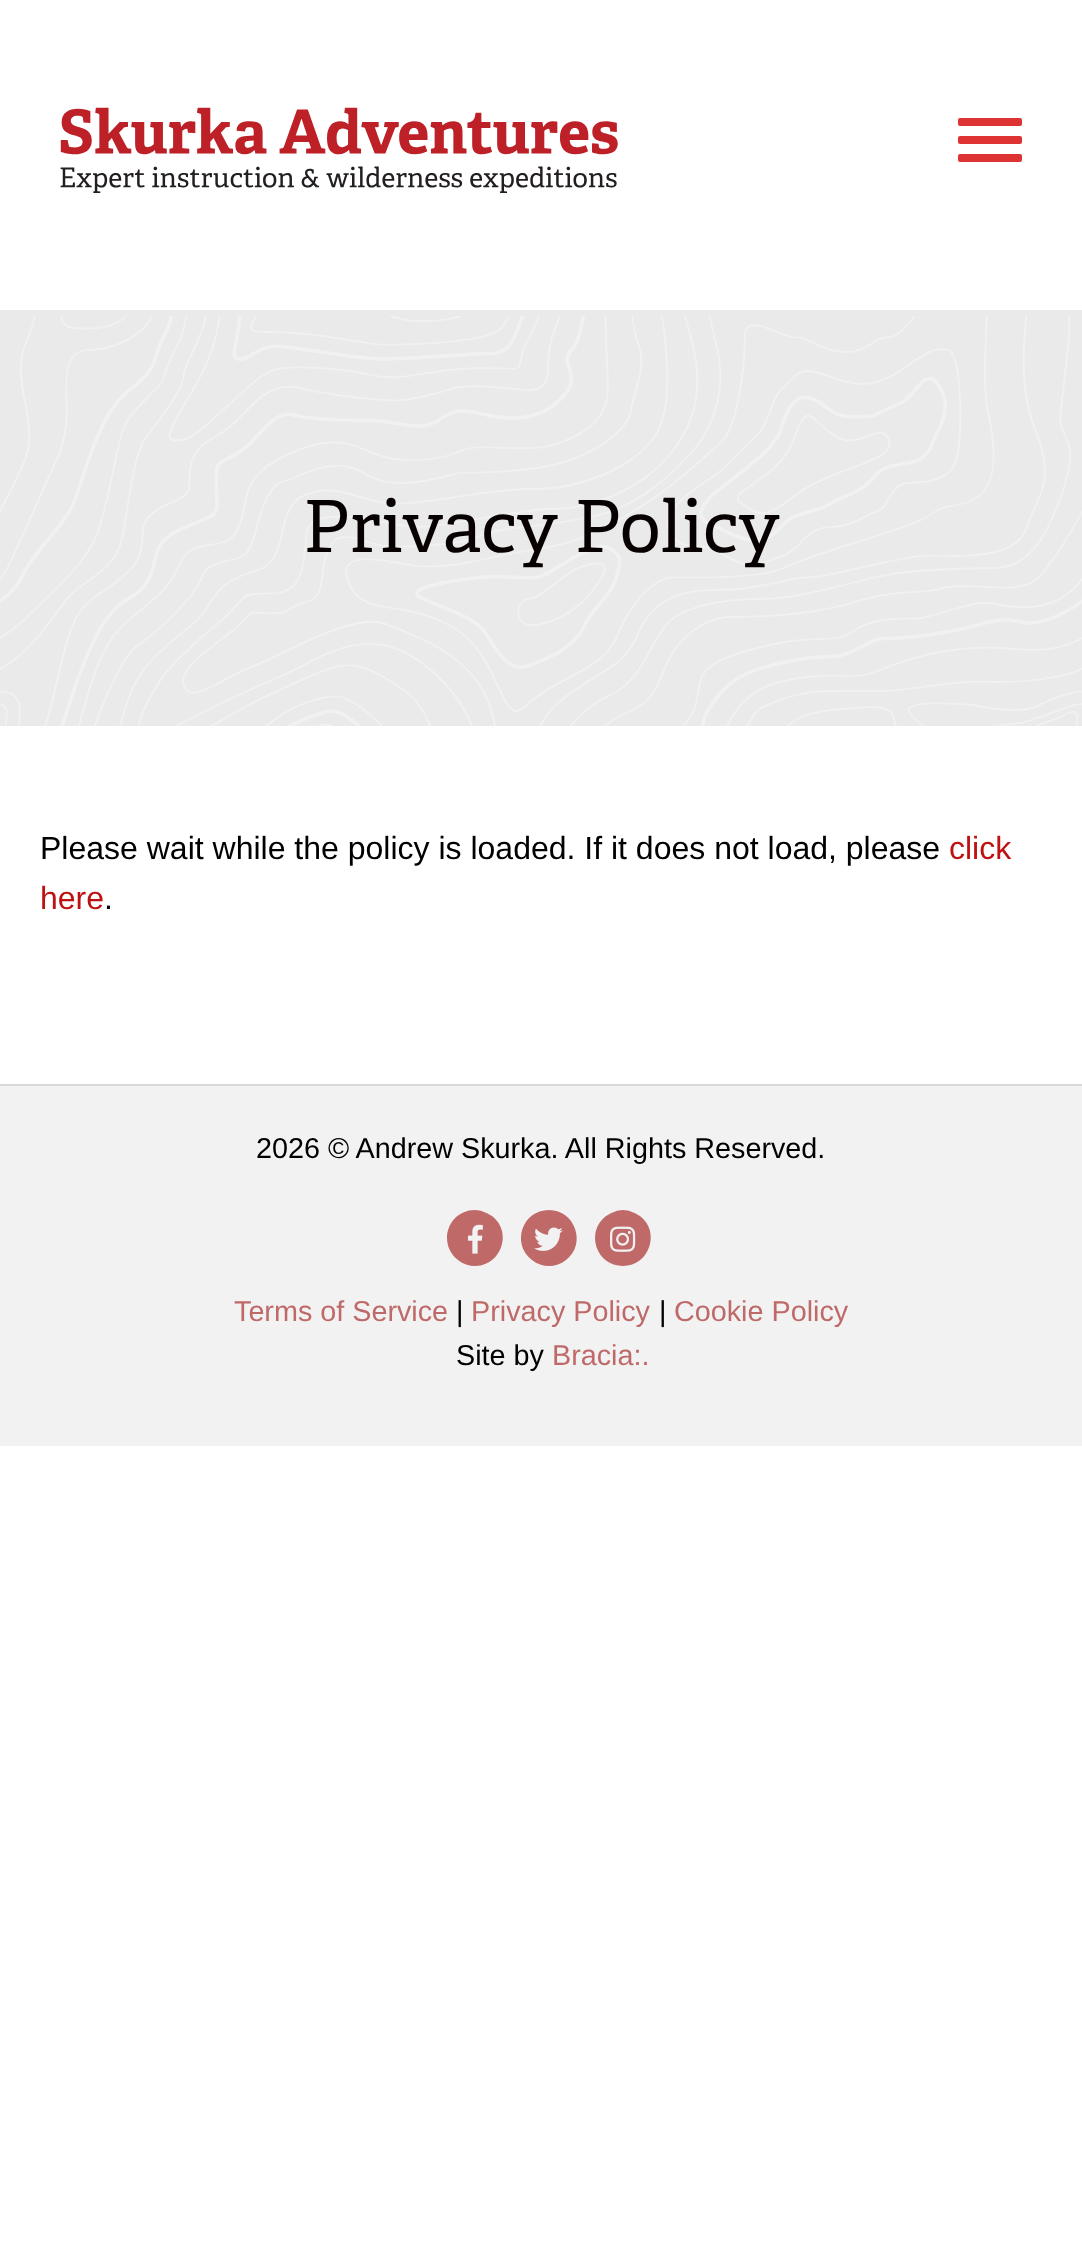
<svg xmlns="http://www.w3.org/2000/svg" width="1082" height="2264">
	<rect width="100%" height="100%" fill="#FFFFFF" />
	<rect x="0" y="310" width="1082" height="416" fill="#EAEAEA" />
	<image x="60" y="107" width="558" height="86" href="assets/img1.png" />
	<rect x="958" y="118" width="64" height="8" rx="2" fill="#DD3333" />
	<rect x="958" y="136" width="64" height="8" rx="2" fill="#DD3333" />
	<rect x="958" y="154" width="64" height="8" rx="2" fill="#DD3333" />
	<image x="0" y="316" width="1082" height="410" href="assets/img2.png" />
	<text x="303" y="552" font-family="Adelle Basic" font-size="72" fill="#070000">Privacy Policy</text>
	<text x="40" y="859" font-family="Liberation Sans" font-size="32" fill="#000000">Please wait while the policy is loaded. If it does not load, please</text>
	<g font-family="Liberation Sans" font-size="32" fill="#BE1111">
		<text x="949" y="859">click</text>
		<text x="40" y="909">here</text>
	</g>
	<text x="104" y="909" font-family="Liberation Sans" font-size="32" fill="#000000">.</text>
	<rect x="0" y="1086" width="1082" height="360" fill="#F2F2F2" />
	<rect x="0" y="1084" width="1082" height="2" fill="#D9D9D9" />
	<text x="256" y="1158" font-family="Liberation Sans" font-size="28.75" fill="#000000">2026 © Andrew Skurka. All Rights Reserved.</text>
	<path d="M475 1210C448 1210 437 1244 458 1260C463 1264 469 1266 475 1266C501 1266 513 1232 492 1216C487 1213 481 1210 475 1210Z" fill="#BF6969" />
	<image x="468" y="1224" width="15" height="30" href="assets/img3.png" />
	<path d="M549 1210C522 1210 511 1244 532 1260C537 1264 543 1266 549 1266C555 1266 561 1264 566 1260C587 1244 575 1210 549 1210Z" fill="#BF6969" />
	<image x="534" y="1227" width="29" height="24" href="assets/img4.png" />
	<path d="M623 1210C617 1210 611 1213 606 1216C585 1232 596 1266 623 1266C649 1266 661 1232 640 1216C635 1213 629 1210 623 1210Z" fill="#BF6969" />
	<image x="610" y="1226" width="26" height="26" href="assets/img5.png" />
	<text x="234" y="1321" font-family="Liberation Sans" font-size="28.75" fill="#BF6969">Terms of Service</text>
	<text x="456" y="1321" font-family="Liberation Sans" font-size="28.75" fill="#000000">|</text>
	<text x="471" y="1321" font-family="Liberation Sans" font-size="28.75" fill="#BF6969">Privacy Policy</text>
	<text x="659" y="1321" font-family="Liberation Sans" font-size="28.75" fill="#000000">|</text>
	<text x="674" y="1321" font-family="Liberation Sans" font-size="28.75" fill="#BF6969">Cookie Policy</text>
	<text x="456" y="1365" font-family="Liberation Sans" font-size="28.75" fill="#000000">Site by</text>
	<text x="552" y="1365" font-family="Liberation Sans" font-size="28.75" fill="#BF6969">Bracia:.</text>
</svg>
